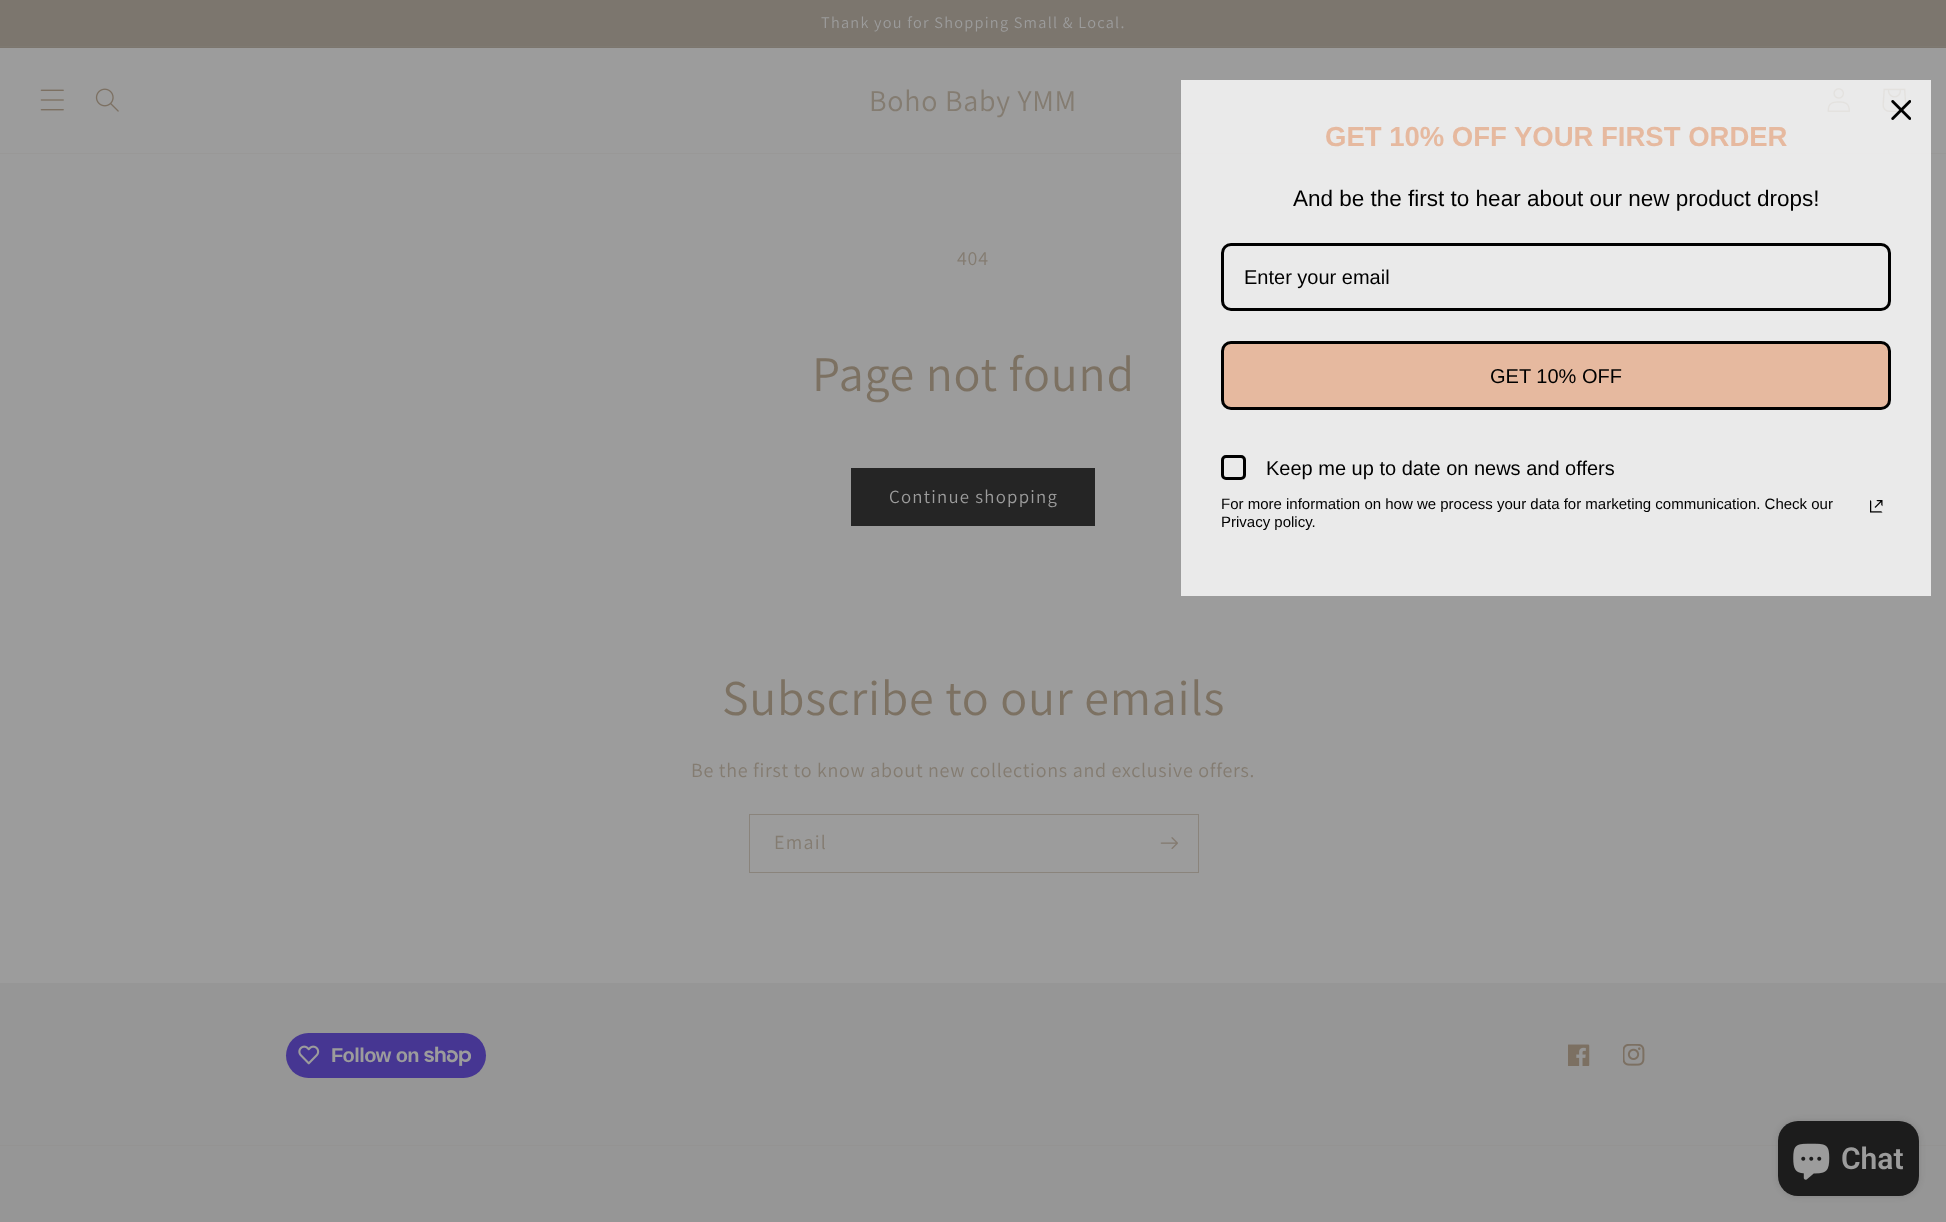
<svg xmlns="http://www.w3.org/2000/svg" width="1946" height="1222">
	<rect width="100%" height="100%" fill="#9C9C9C" />
	<rect x="1181" y="80" width="750" height="516" fill="#EAEAEA" />
	<rect x="0" y="0" width="1946" height="48" fill="#7C766E" />
	<rect x="0" y="46" width="1946" height="1" fill="#7E7971" />
	<text x="821" y="28" font-family="Assistant" font-size="16.25" letter-spacing="1.25" fill="#9C9C9C">Thank you for Shopping Small &amp; Local.</text>
	<rect x="0" y="153" width="1946" height="1" fill="#999897" />
	<rect x="1181" y="153" width="750" height="1" fill="#EAE9E9" />
	<image x="40" y="89" width="24" height="22" href="assets/img1.png" />
	<image x="95" y="88" width="24" height="24" href="assets/img2.png" />
	<text x="869" y="111" font-family="Assistant" font-size="30" letter-spacing="0.75" fill="#847C71">Boho Baby YMM</text>
	<image x="1827" y="88" width="23" height="24" href="assets/img3.png" />
	<image x="1882" y="88" width="25" height="24" href="assets/img4.png" />
	<text x="957" y="265" font-family="Assistant" font-size="20" letter-spacing="0.75" fill="#847C71">404</text>
	<text x="812" y="391" font-family="Assistant" font-size="50" letter-spacing="0.75" fill="#7C7162">Page not found</text>
	<rect x="851" y="468" width="244" height="58" fill="#252525" />
	<text x="889" y="503" font-family="Assistant" font-size="18.75" letter-spacing="1.25" fill="#9C9C9C">Continue shopping</text>
	<image x="1891" y="100" width="20" height="20" href="assets/img5.png" />
	<text x="1325" y="146" font-family="Liberation Sans" font-size="27.5" font-weight="700" fill="#E6B99F">GET 10% OFF YOUR FIRST ORDER</text>
	<text x="1293" y="206" font-family="Liberation Sans" font-size="22.5" fill="#000000">And be the first to hear about our new product drops!</text>
	<rect x="1222.5" y="244.5" width="667" height="65" rx="8.5" fill="none" stroke="#000000" stroke-width="3" />
	<text x="1244" y="284" font-family="Liberation Sans" font-size="20" fill="#000000">Enter your email</text>
	<rect x="1222.5" y="342.5" width="667" height="66" rx="8.5" fill="#E6B99F" stroke="#000000" stroke-width="3" />
	<text x="1490" y="383" font-family="Liberation Sans" font-size="20" fill="#000000">GET 10% OFF</text>
	<rect x="1222.5" y="456.5" width="22" height="22" rx="3.5" fill="none" stroke="#000000" stroke-width="3" />
	<text x="1266" y="475" font-family="Liberation Sans" font-size="20" fill="#000000">Keep me up to date on news and offers</text>
	<g font-family="Liberation Sans" font-size="15" fill="#000000">
		<text x="1221" y="509">For more information on how we process your data for marketing communication. Check our</text>
		<text x="1221" y="527">Privacy policy.</text>
	</g>
	<image x="1870" y="500" width="13" height="13" href="assets/img6.png" />
	<text x="722" y="715" font-family="Assistant" font-size="50" letter-spacing="0.75" fill="#7C7162">Subscribe to our emails</text>
	<text x="691" y="777" font-family="Assistant" font-size="20" letter-spacing="0.75" fill="#847C71">Be the first to know about new collections and exclusive offers.</text>
	<rect x="749.5" y="814.5" width="449" height="58" fill="none" stroke="#8A847C" />
	<text x="774" y="849" font-family="Assistant" font-size="20" letter-spacing="1.25" fill="#847C71">Email</text>
	<image x="1160" y="837" width="18" height="12" href="assets/img7.png" />
	<rect x="0" y="983" width="1946" height="239" fill="#969696" />
	<rect x="286" y="1033" width="200" height="45" rx="22.5" fill="#463692" />
	<image x="298" y="1045" width="22" height="20" href="assets/img8.png" />
	<text x="331" y="1062" font-family="Liberation Sans" font-size="20" font-weight="700" letter-spacing="-0.6" fill="#9C9C9C">Follow on</text>
	<image x="424" y="1046" width="47" height="20" href="assets/img9.png" />
	<image x="1568" y="1044" width="22" height="22" href="assets/img10.png" />
	<image x="1623" y="1044" width="22" height="22" href="assets/img11.png" />
	<rect x="0" y="1145" width="1946" height="1" fill="#949392" />
	<rect x="1778" y="1121" width="141" height="75" rx="20" fill="#1C1C1C" fill-opacity="0.15" filter="blur(3px)" />
	<rect x="1778" y="1121" width="141" height="75" rx="20" fill="#1C1C1C" />
	<image x="1793" y="1143" width="37" height="37" href="assets/img12.png" />
	<text x="1841" y="1169" font-family="Roboto" font-size="30" font-weight="600" fill="#9C9C9C">Chat</text>
</svg>
